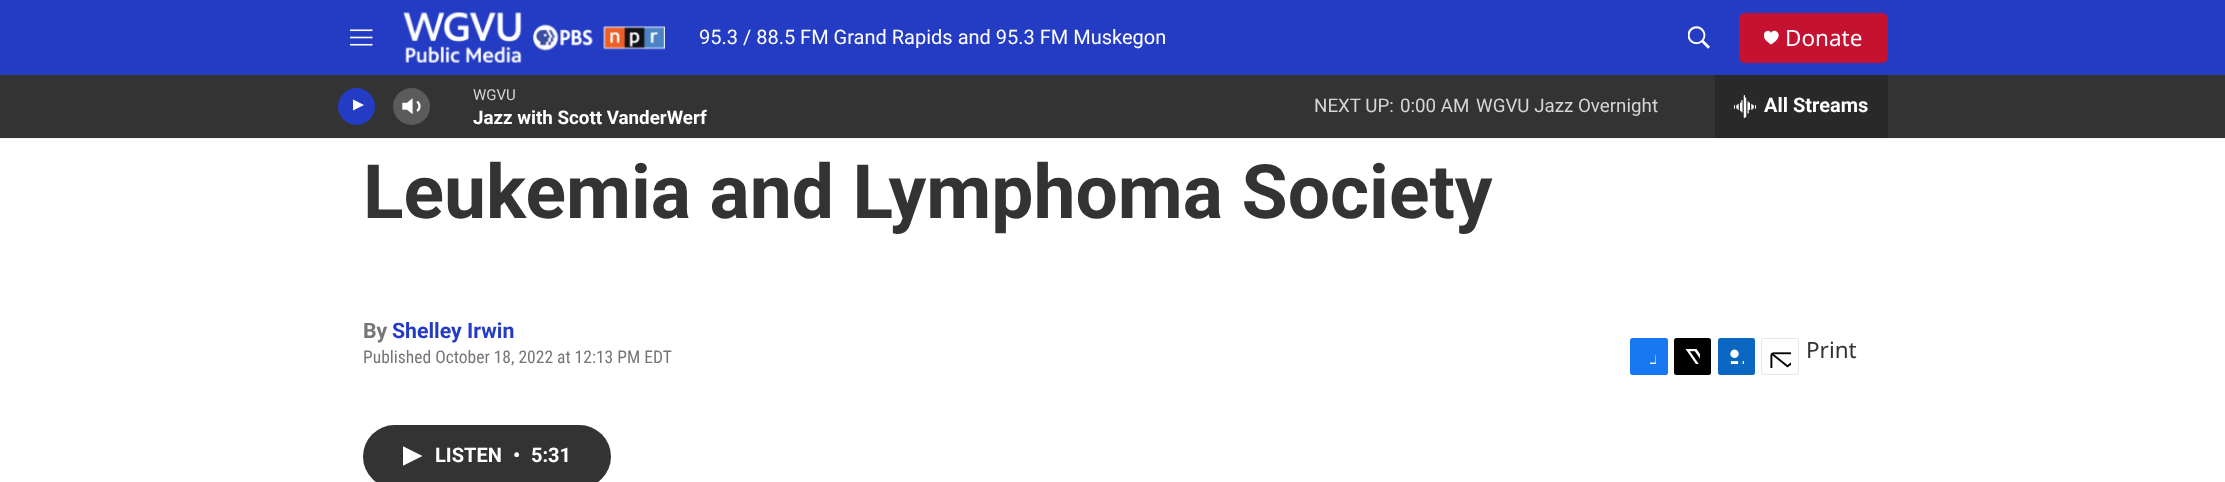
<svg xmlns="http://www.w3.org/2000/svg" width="2225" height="482">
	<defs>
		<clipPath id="clip1"><rect x="1764" y="30" width="15" height="15" /></clipPath>
		<clipPath id="clip2"><rect x="353" y="98" width="14" height="18" /></clipPath>
		<clipPath id="clip3"><rect x="403" y="446" width="20" height="20" /></clipPath>
	</defs>
	<rect width="100%" height="100%" fill="#FFFFFF" />
	<rect x="0" y="0" width="2225" height="75" fill="#243CC4" />
	<rect x="0" y="138" width="2225" height="1" fill="#F5F5F5" />
	<image x="350" y="29" width="23" height="17" href="assets/img1.png" />
	<image x="403" y="12" width="262" height="51" href="assets/img2.png" />
	<text x="699" y="44" font-family="Roboto" font-size="20" fill="#FFFFFF">95.3 / 88.5 FM Grand Rapids and 95.3 FM Muskegon</text>
	<image x="1688" y="26" width="22" height="23" href="assets/img3.png" />
	<rect x="1739" y="13" width="149" height="50" rx="6" fill="#C41230" />
	<g clip-path="url(#clip1)">
		<path d="M1771 33C1769 26.5 1755.5 35 1771 44.5C1787 35 1773.5 26.5 1771 33Z" fill="#FFFFFF" />
	</g>
	<text x="1785" y="46" font-family="Noto Sans" font-size="22.5" fill="#FFFFFF">Donate</text>
	<rect x="0" y="75" width="2225" height="63" fill="#333333" />
	<circle cx="356.5" cy="106.5" r="18.5" fill="#243CC4" />
	<g clip-path="url(#clip2)">
		<path d="M352 99L364 105L352 111Z" fill="#FFFFFF" />
	</g>
	<image x="402" y="98" width="19" height="17" href="assets/img4.png" />
	<circle cx="411.5" cy="106.5" r="18.5" fill="#FFFFFF" fill-opacity="0.2" />
	<text x="473" y="100" font-family="Roboto" font-size="15" fill="#D6D6D6">WGVU</text>
	<text x="473" y="124" font-family="'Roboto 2'" font-size="18.75" font-weight="700" fill="#FFFFFF">Jazz with Scott VanderWerf</text>
	<g font-family="Roboto" font-size="18.75" fill="#D6D6D6">
		<text x="1314" y="112">NEXT UP:</text>
		<text x="1400" y="112">0:00 AM</text>
		<text x="1476" y="112">WGVU Jazz Overnight</text>
	</g>
	<rect x="1715" y="75" width="173" height="63" fill="#292929" />
	<image x="1734" y="95" width="22" height="23" href="assets/img5.png" />
	<text x="1764" y="112" font-family="'Roboto 2'" font-size="20" font-weight="700" fill="#FFFFFF">All Streams</text>
	<text x="363" y="218" font-family="Roboto" font-size="75" font-weight="700" fill="#333333">Leukemia and Lymphoma Society</text>
	<text x="363" y="338" font-family="Roboto" font-size="21.25" font-weight="700" fill="#767676">By</text>
	<text x="392" y="338" font-family="Roboto" font-size="21.25" font-weight="700" fill="#243CC4">Shelley Irwin</text>
	<text x="363" y="363" font-family="Roboto Condensed" font-size="17.5" fill="#767676">Published October 18, 2022 at 12:13 PM EDT</text>
	<rect x="1630" y="338" width="38" height="37" rx="2.5" fill="#1778F2" />
	<image x="1650" y="354" width="6" height="10" href="assets/img6.png" />
	<rect x="1674" y="338" width="37" height="37" rx="2.5" fill="#000000" />
	<image x="1685" y="349" width="15" height="15" href="assets/img7.png" />
	<rect x="1718" y="338" width="37" height="37" rx="2.5" fill="#0A66C1" />
	<image x="1730" y="349" width="14" height="15" href="assets/img8.png" />
	<rect x="1761.5" y="338.5" width="37" height="36" rx="2" fill="none" stroke="#E6E6E6" />
	<image x="1770" y="352" width="21" height="16" href="assets/img9.png" />
	<text x="1806" y="358" font-family="Noto Sans" font-size="22.5" fill="#333333">Print</text>
	<rect x="363" y="425" width="248" height="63" rx="31.5" fill="#333333" />
	<g clip-path="url(#clip3)">
		<path d="M402.5 446L422.5 456L402.5 466Z" fill="#FFFFFF" />
	</g>
	<g font-family="'Roboto 2'" font-size="20" font-weight="700" fill="#FFFFFF">
		<text x="435" y="462">LISTEN</text>
		<text x="513" y="462">•</text>
		<text x="531" y="462">5:31</text>
	</g>
</svg>
